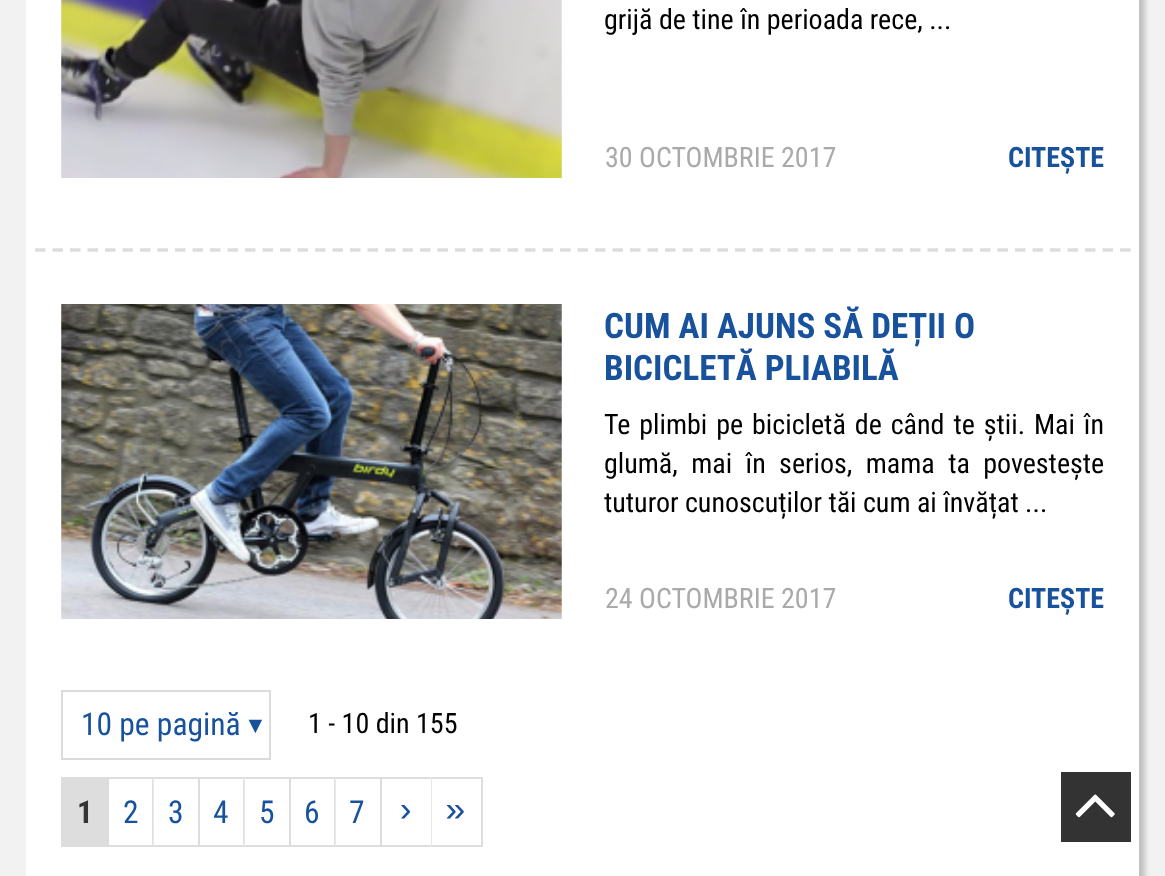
<svg xmlns="http://www.w3.org/2000/svg" width="1165" height="876">
	<defs>
		<clipPath id="clip1"><path d="M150 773H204V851H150ZM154 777H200V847H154Z" clip-rule="evenodd" /></clipPath>
		<clipPath id="clip2"><path d="M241 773H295V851H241ZM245 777H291V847H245Z" clip-rule="evenodd" /></clipPath>
		<clipPath id="clip3"><path d="M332 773H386V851H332ZM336 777H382V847H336Z" clip-rule="evenodd" /></clipPath>
	</defs>
	<rect width="100%" height="100%" fill="#F2F2F2" />
	<rect x="32" y="-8" width="1113" height="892" fill="#000000" fill-opacity="0.2" filter="blur(2.5px)" />
	<rect x="26" y="0" width="1113" height="876" fill="#FFFFFF" />
	<image x="61" y="0" width="501" height="178" href="assets/img1.png" />
	<text x="604" y="29" font-family="Roboto Condensed" font-size="28" fill="#000000">grijă de tine în perioada rece, ...</text>
	<text x="605" y="167" font-family="Roboto Condensed" font-size="28" fill="#AAAAAA">30 OCTOMBRIE 2017</text>
	<text x="1008" y="167" font-family="Roboto Condensed" font-size="28" font-weight="700" fill="#18529C">CITEȘTE</text>
	<path d="M35 250H1130.5" fill="none" stroke="#DDDDDD" stroke-width="3.5" stroke-dasharray="10.5 7" />
	<image x="61" y="304" width="501" height="315" href="assets/img2.png" />
	<g font-family="Roboto Condensed" font-size="35" font-weight="700" fill="#18529C">
		<text x="604" y="338">CUM AI AJUNS SĂ DEȚII O</text>
		<text x="604" y="380">BICICLETĂ PLIABILĂ</text>
	</g>
	<g font-family="Roboto Condensed" font-size="28" fill="#000000">
		<text x="604" y="434" word-spacing="2.5">Te plimbi pe bicicletă de când te știi. Mai în</text>
		<text x="604" y="473" word-spacing="7">glumă, mai în serios, mama ta povestește</text>
		<text x="604" y="512">tuturor cunoscuților tăi cum ai învățat ...</text>
	</g>
	<text x="605" y="608" font-family="Roboto Condensed" font-size="28" fill="#AAAAAA">24 OCTOMBRIE 2017</text>
	<text x="1008" y="608" font-family="Roboto Condensed" font-size="28" font-weight="700" fill="#18529C">CITEȘTE</text>
	<rect x="62" y="691" width="208" height="68" fill="none" stroke="#DBDBDB" stroke-width="2" />
	<text x="81" y="735" font-family="Roboto Condensed" font-size="31.5" fill="#18529C">10 pe pagină</text>
	<text x="244" y="733" font-family="Liberation Sans" font-size="23" fill="#18529C">▼</text>
	<text x="308" y="733" font-family="Roboto Condensed" font-size="28" fill="#000000">1 - 10 din 155</text>
	<rect x="61" y="777" width="48" height="70" fill="#DDDDDD" />
	<text x="77" y="823" font-family="Roboto Condensed" font-size="31.5" font-weight="700" fill="#333333">1</text>
	<rect x="109" y="777" width="45" height="2" fill="#DDDDDD" />
	<rect x="152" y="777" width="2" height="70" fill="#DDDDDD" />
	<rect x="109" y="845" width="45" height="2" fill="#DDDDDD" />
	<text x="123" y="823" font-family="Roboto Condensed" font-size="31.5" fill="#18529C">2</text>
	<g clip-path="url(#clip1)">
		<rect x="154" y="777" width="46" height="70" fill="#FFFFFF" filter="blur(1px)" />
	</g>
	<rect x="154" y="777" width="91" height="2" fill="#DDDDDD" />
	<rect x="198" y="777" width="2" height="70" fill="#DDDDDD" />
	<rect x="154" y="845" width="46" height="2" fill="#DDDDDD" />
	<text x="168" y="823" font-family="Roboto Condensed" font-size="31.5" fill="#18529C">3</text>
	<rect x="243" y="777" width="2" height="70" fill="#DDDDDD" />
	<rect x="200" y="845" width="45" height="2" fill="#DDDDDD" />
	<text x="213" y="823" font-family="Roboto Condensed" font-size="31.5" fill="#18529C">4</text>
	<g clip-path="url(#clip2)">
		<rect x="245" y="777" width="46" height="70" fill="#FFFFFF" filter="blur(1px)" />
	</g>
	<rect x="245" y="777" width="91" height="2" fill="#DDDDDD" />
	<rect x="289" y="777" width="2" height="70" fill="#DDDDDD" />
	<rect x="245" y="845" width="46" height="2" fill="#DDDDDD" />
	<text x="259" y="823" font-family="Roboto Condensed" font-size="31.5" fill="#18529C">5</text>
	<rect x="334" y="777" width="2" height="70" fill="#DDDDDD" />
	<rect x="291" y="845" width="45" height="2" fill="#DDDDDD" />
	<text x="304" y="823" font-family="Roboto Condensed" font-size="31.5" fill="#18529C">6</text>
	<g clip-path="url(#clip3)">
		<rect x="336" y="777" width="46" height="70" fill="#FFFFFF" filter="blur(1px)" />
	</g>
	<rect x="336" y="777" width="96" height="2" fill="#DDDDDD" />
	<rect x="380" y="777" width="2" height="70" fill="#DDDDDD" />
	<rect x="336" y="845" width="46" height="2" fill="#DDDDDD" />
	<text x="349" y="823" font-family="Roboto Condensed" font-size="31.5" fill="#18529C">7</text>
	<rect x="431" y="777" width="1" height="70" fill="#DDDDDD" />
	<rect x="382" y="845" width="50" height="2" fill="#DDDDDD" />
	<text x="395" y="821" font-family="Liberation Mono" font-size="35" fill="#18529C">›</text>
	<rect x="432" y="777" width="51" height="70" fill="#FFFFFF" filter="blur(1px)" />
	<rect x="432" y="777" width="51" height="2" fill="#DDDDDD" />
	<rect x="481" y="777" width="2" height="70" fill="#DDDDDD" />
	<rect x="432" y="845" width="51" height="2" fill="#DDDDDD" />
	<text x="445" y="821" font-family="Liberation Mono" font-size="35" fill="#18529C">»</text>
	<rect x="1061" y="772" width="70" height="70" fill="#333333" />
	<image x="1075" y="794" width="40" height="24" href="assets/img3.png" />
</svg>
